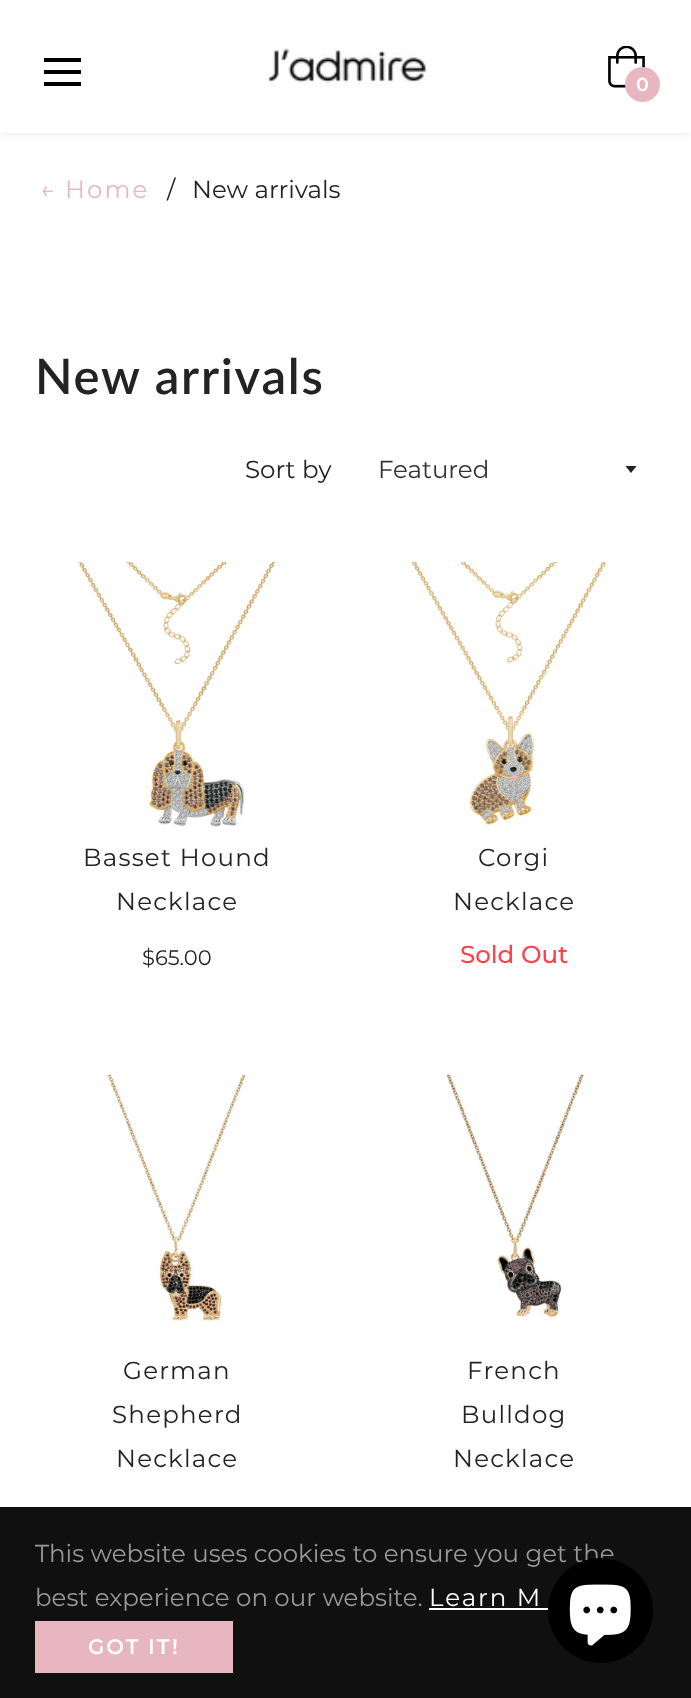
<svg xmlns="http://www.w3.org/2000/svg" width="691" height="1698">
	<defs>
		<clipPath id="clip1"><rect x="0" y="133" width="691" height="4" /></clipPath>
		<clipPath id="clip2"><rect x="625" y="466" width="14" height="8" /></clipPath>
	</defs>
	<rect width="100%" height="100%" fill="#FFFFFF" />
	<g clip-path="url(#clip1)">
		<rect x="0" y="0" width="691" height="133" fill="#000000" fill-opacity="0.1" filter="blur(4.5px)" />
	</g>
	<rect x="44" y="58" width="37" height="4" fill="#000000" />
	<rect x="44" y="70" width="37" height="4" fill="#000000" />
	<rect x="44" y="82" width="37" height="4" fill="#000000" />
	<image x="267" y="46" width="160" height="41" href="assets/img1.png" />
	<image x="608" y="46" width="37" height="42" href="assets/img2.png" />
	<circle cx="642.5" cy="84.5" r="17.5" fill="#E8B6C0" />
	<text x="636" y="91" font-family="Montserrat" font-size="19" font-weight="600" fill="#FFFFFF">0</text>
	<text x="40" y="198" font-family="Montserrat" font-size="24.5" letter-spacing="2" fill="#E8B6C0">← Home</text>
	<g font-family="Montserrat" font-size="24.5" fill="#232323">
		<text x="167" y="198">/</text>
		<text x="192" y="198">New arrivals</text>
	</g>
	<text x="35" y="394" font-family="Lato" font-size="49" font-weight="600" letter-spacing="1.75" fill="#232323">New arrivals</text>
	<text x="245" y="478" font-family="Montserrat" font-size="24.5" fill="#232323">Sort by</text>
	<g clip-path="url(#clip2)">
		<path d="M625 465.5L631 473L637 465.5Z" fill="#232323" />
	</g>
	<text x="378" y="478" font-family="Montserrat" font-size="24.5" fill="#333333">Featured</text>
	<image x="77" y="561" width="199" height="266" href="assets/img3.png" />
	<g font-family="Montserrat" font-size="24.5" letter-spacing="1.25" fill="#232323">
		<text x="83" y="866">Basset Hound</text>
		<text x="116" y="910">Necklace</text>
	</g>
	<text x="142" y="965" font-family="Montserrat" font-size="21" fill="#232323">$65.00</text>
	<image x="411" y="561" width="196" height="264" href="assets/img4.png" />
	<g font-family="Montserrat" font-size="24.5" letter-spacing="1.25" fill="#232323">
		<text x="478" y="866">Corgi</text>
		<text x="453" y="910">Necklace</text>
	</g>
	<text x="460" y="963" font-family="Montserrat" font-size="24.5" font-weight="500" fill="#FF414C">Sold Out</text>
	<image x="107" y="1074" width="140" height="251" href="assets/img5.png" />
	<g font-family="Montserrat" font-size="24.5" letter-spacing="1.25" fill="#232323">
		<text x="123" y="1379">German</text>
		<text x="112" y="1423">Shepherd</text>
		<text x="116" y="1467">Necklace</text>
	</g>
	<image x="446" y="1074" width="139" height="245" href="assets/img6.png" />
	<g font-family="Montserrat" font-size="24.5" letter-spacing="1.25" fill="#232323">
		<text x="467" y="1379">French</text>
		<text x="461" y="1423">Bulldog</text>
		<text x="453" y="1467">Necklace</text>
	</g>
	<rect x="0" y="1507" width="691" height="191" fill="#101010" />
	<g font-family="Montserrat" font-size="24.5" fill="#999999">
		<text x="35" y="1562">This website uses cookies to ensure you get the</text>
		<text x="35" y="1606">best experience on our website.</text>
	</g>
	<text x="429" y="1606" font-family="Montserrat" font-size="24.5" letter-spacing="2" fill="#FFFFFF">Learn M</text>
	<rect x="429" y="1608" width="120" height="2" fill="#FFFFFF" />
	<rect x="35" y="1621" width="198" height="52" fill="#E8B6C0" />
	<text x="88" y="1654" font-family="Montserrat" font-size="21" font-weight="600" letter-spacing="2" fill="#FFFFFF">GOT IT!</text>
	<circle cx="600.5" cy="1610.5" r="52.5" fill="#000000" />
	<image x="569" y="1584" width="62" height="62" href="assets/img7.png" />
</svg>
